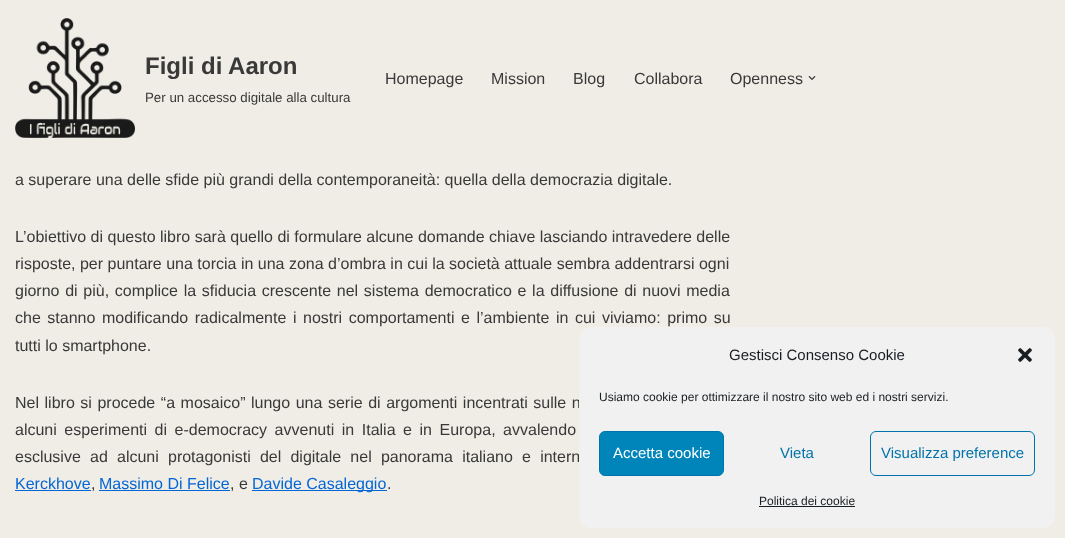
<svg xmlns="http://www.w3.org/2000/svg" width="1065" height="538">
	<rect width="100%" height="100%" fill="#EFEDE5" />
	<image x="15" y="18" width="120" height="120" href="assets/img1.png" />
	<text x="145" y="74" font-family="Liberation Sans" font-size="24" font-weight="700" fill="#393939">Figli di Aaron</text>
	<text x="145" y="102" font-family="Liberation Sans" font-size="13.3" fill="#393939">Per un accesso digitale alla cultura</text>
	<g font-family="Liberation Sans" font-size="16" fill="#393939">
		<text x="385" y="84">Homepage</text>
		<text x="491" y="84">Mission</text>
		<text x="573" y="84">Blog</text>
		<text x="634" y="84">Collabora</text>
		<text x="730" y="84">Openness</text>
	</g>
	<image x="808" y="76" width="8" height="4" href="assets/img2.png" />
	<g font-family="Liberation Sans" font-size="16" fill="#393939">
		<text x="15" y="185">a superare una delle sfide più grandi della contemporaneità: quella della democrazia digitale.</text>
		<text x="15" y="242">L’obiettivo di questo libro sarà quello di formulare alcune domande chiave lasciando intravedere delle</text>
		<text x="15" y="269">risposte, per puntare una torcia in una zona d’ombra in cui la società attuale sembra addentrarsi ogni</text>
		<text x="15" y="296" word-spacing="1.25">giorno di più, complice la sfiducia crescente nel sistema democratico e la diffusione di nuovi media</text>
		<text x="15" y="323" word-spacing="2.1">che stanno modificando radicalmente i nostri comportamenti e l’ambiente in cui viviamo: primo su</text>
		<text x="15" y="351">tutti lo smartphone.</text>
		<text x="15" y="408" word-spacing="1.1">Nel libro si procede “a mosaico” lungo una serie di argomenti incentrati sulle n</text>
		<text x="15" y="435" word-spacing="3.1">alcuni esperimenti di e-democracy avvenuti in Italia e in Europa, avvalendo</text>
		<text x="15" y="462" word-spacing="4.75">esclusive ad alcuni protagonisti del digitale nel panorama italiano e intern</text>
	</g>
	<text x="15" y="489" font-family="Liberation Sans" font-size="16" fill="#0366D6">Kerckhove</text>
	<rect x="15" y="490" width="76" height="1" fill="#0366D6" />
	<text x="91" y="489" font-family="Liberation Sans" font-size="16" fill="#393939">,</text>
	<text x="99" y="489" font-family="Liberation Sans" font-size="16" fill="#0366D6">Massimo Di Felice</text>
	<rect x="99" y="490" width="131" height="1" fill="#0366D6" />
	<text x="230" y="489" font-family="Liberation Sans" font-size="16" fill="#393939">, e</text>
	<rect x="252" y="490" width="135" height="1" fill="#0366D6" />
	<text x="252" y="489" font-family="Liberation Sans" font-size="16" fill="#0366D6">Davide Casaleggio</text>
	<text x="387" y="489" font-family="Liberation Sans" font-size="16" fill="#393939">.</text>
	<rect x="579" y="327" width="476" height="201" rx="12" fill="#F1F1F1" />
	<text x="729" y="360" font-family="Liberation Sans" font-size="15" fill="#191E23">Gestisci Consenso Cookie</text>
	<image x="1018" y="348" width="14" height="14" href="assets/img3.png" />
	<text x="599" y="401" font-family="Liberation Sans" font-size="12" fill="#191E23">Usiamo cookie per ottimizzare il nostro sito web ed i nostri servizi.</text>
	<rect x="599.5" y="431.5" width="124" height="44" rx="5.5" fill="#0085BA" stroke="#0073AA" />
	<text x="613" y="458" font-family="Liberation Sans" font-size="15" fill="#FFFFFF">Accetta cookie</text>
	<text x="780" y="458" font-family="Liberation Sans" font-size="15" fill="#0073AA">Vieta</text>
	<rect x="870.5" y="431.5" width="164" height="44" rx="5.5" fill="none" stroke="#0073AA" />
	<text x="881" y="458" font-family="Liberation Sans" font-size="15" fill="#0073AA">Visualizza preference</text>
	<text x="759" y="505" font-family="Liberation Sans" font-size="12" fill="#191E23">Politica dei cookie</text>
	<rect x="759" y="506" width="96" height="1" fill="#191E23" />
</svg>
